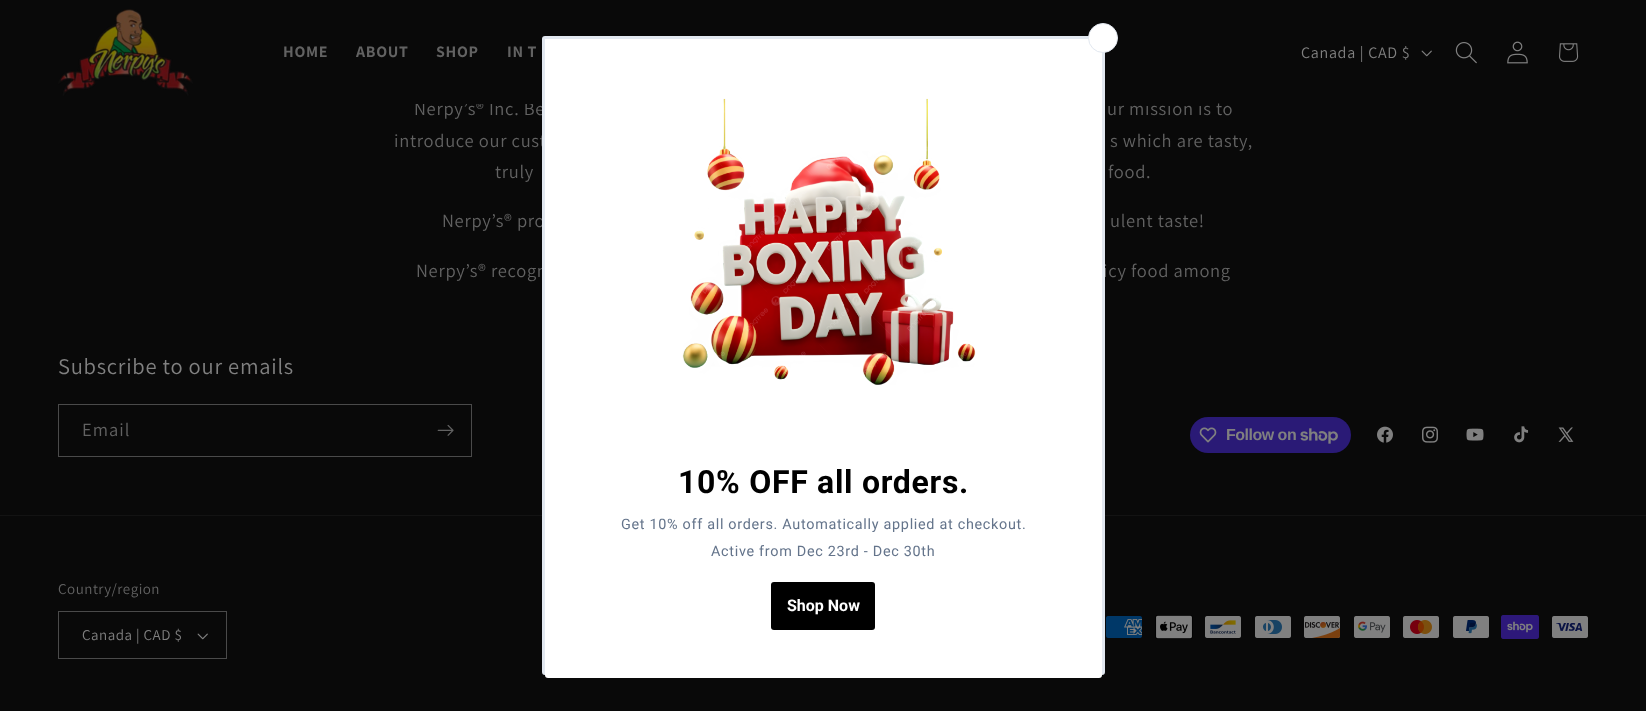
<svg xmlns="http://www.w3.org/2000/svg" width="1646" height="711">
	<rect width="100%" height="100%" fill="#090909" />
	<g font-family="Assistant" font-size="18.5" letter-spacing="0.7" fill="#626262">
		<text x="414" y="115">Nerpy’s® Inc. Be</text>
		<text x="1107" y="115">ur mission is to</text>
	</g>
	<rect x="415" y="101" width="803" height="3" fill="#090909" />
	<image x="58" y="9" width="135" height="87" href="assets/img1.png" />
	<g font-family="Assistant" font-size="16" font-weight="700" letter-spacing="0.7" fill="#626262">
		<text x="283" y="57">HOME</text>
		<text x="356" y="57">ABOUT</text>
		<text x="436" y="57">SHOP</text>
		<text x="507" y="57">IN T</text>
	</g>
	<text x="1301" y="58" font-family="Assistant" font-size="16" letter-spacing="0.7" fill="#808080">Canada | CAD $</text>
	<image x="1421" y="50" width="11" height="7" href="assets/img2.png" />
	<image x="1455" y="42" width="22" height="22" href="assets/img3.png" />
	<image x="1507" y="41" width="21" height="23" href="assets/img4.png" />
	<image x="1559" y="43" width="20" height="19" href="assets/img5.png" />
	<g font-family="Assistant" font-size="18.5" letter-spacing="0.7" fill="#626262">
		<text x="394" y="147">introduce our cust</text>
		<text x="1110" y="147">s which are tasty,</text>
		<text x="495" y="178">truly</text>
		<text x="1108" y="178">food.</text>
		<text x="442" y="227">Nerpy’s® pro</text>
		<text x="1110" y="227">ulent taste!</text>
		<text x="416" y="277">Nerpy’s® recogn</text>
		<text x="1103" y="277">icy food among</text>
	</g>
	<text x="58" y="374" font-family="Assistant" font-size="22.5" letter-spacing="0.75" fill="#808080">Subscribe to our emails</text>
	<rect x="58.5" y="404.5" width="413" height="52" fill="none" stroke="#4A4A4A" />
	<text x="82" y="436" font-family="Assistant" font-size="18.5" letter-spacing="1" fill="#626262">Email</text>
	<image x="437" y="424" width="17" height="12" href="assets/img6.png" />
	<rect x="1190" y="417" width="161" height="36" rx="18" fill="#2A1A76" />
	<image x="1199" y="427" width="18" height="16" href="assets/img7.png" />
	<text x="1226" y="440" font-family="Liberation Sans" font-size="16" font-weight="700" letter-spacing="-0.5" fill="#808080">Follow on</text>
	<image x="1300" y="428" width="38" height="16" href="assets/img8.png" />
	<image x="1377" y="426" width="16" height="17" href="assets/img9.png" />
	<image x="1422" y="426" width="16" height="17" href="assets/img10.png" />
	<image x="1466" y="428" width="18" height="13" href="assets/img11.png" />
	<image x="1514" y="426" width="15" height="17" href="assets/img12.png" />
	<image x="1558" y="427" width="16" height="15" href="assets/img13.png" />
	<rect x="0" y="515" width="1646" height="1" fill="#131313" />
	<text x="58" y="594" font-family="Assistant" font-size="15" letter-spacing="0.5" fill="#626262">Country/region</text>
	<image x="197" y="633" width="11" height="7" href="assets/img2.png" />
	<rect x="58.5" y="611.5" width="168" height="47" fill="none" stroke="#4A4A4A" />
	<text x="82" y="640" font-family="Assistant" font-size="15" letter-spacing="0.5" fill="#808080">Canada | CAD $</text>
	<image x="1106" y="616" width="36" height="22" href="assets/img14.png" />
	<image x="1155" y="615" width="38" height="24" href="assets/img15.png" />
	<image x="1205" y="616" width="36" height="22" href="assets/img16.png" />
	<image x="1255" y="616" width="36" height="22" href="assets/img17.png" />
	<image x="1304" y="616" width="36" height="22" href="assets/img18.png" />
	<image x="1354" y="616" width="36" height="22" href="assets/img19.png" />
	<image x="1403" y="616" width="36" height="22" href="assets/img20.png" />
	<image x="1453" y="616" width="36" height="22" href="assets/img21.png" />
	<image x="1501" y="615" width="38" height="24" href="assets/img22.png" />
	<image x="1552" y="616" width="36" height="22" href="assets/img23.png" />
	<rect x="543.5" y="37.5" width="560" height="636" rx="1.5" fill="#FFFFFF" stroke="#E2E8F0" stroke-width="3" />
	<rect x="545" y="39" width="557" height="639" rx="3" fill="#FFFFFF" />
	<circle cx="1103" cy="38" r="14.5" fill="#FFFFFF" stroke="#E2E8F0" />
	<image x="682" y="98" width="294" height="287" href="assets/img24.png" />
	<text x="678" y="493" font-family="Roboto" font-size="32" font-weight="700" letter-spacing="0.7" fill="#000000">10% OFF all orders.</text>
	<g font-family="Roboto" font-size="14.4" letter-spacing="0.7" fill="#64748B">
		<text x="621" y="529">Get 10% off all orders. Automatically applied at checkout.</text>
		<text x="711" y="556">Active from Dec 23rd - Dec 30th</text>
	</g>
	<rect x="771" y="582" width="104" height="48" rx="3" fill="#000000" />
	<text x="787" y="611" font-family="Roboto" font-size="16" font-weight="700" fill="#FFFFFF">Shop Now</text>
</svg>
